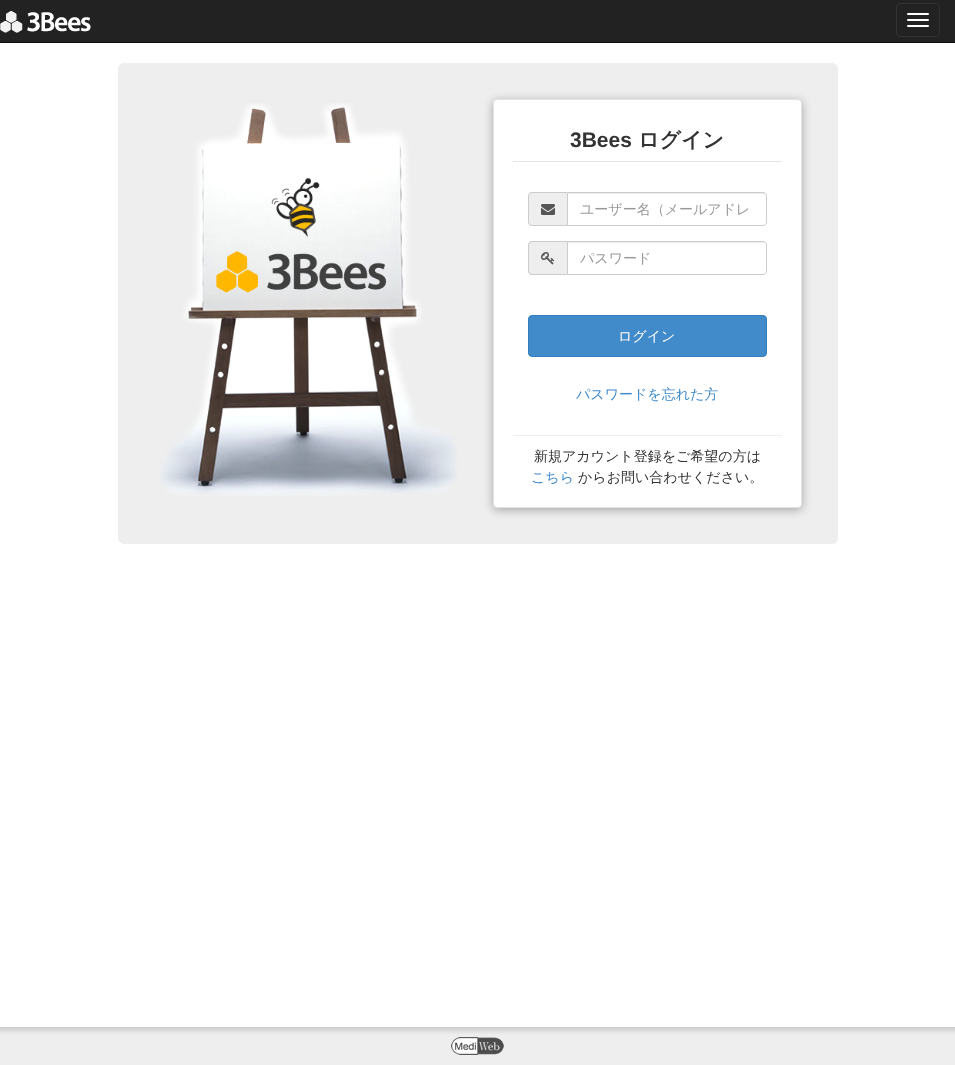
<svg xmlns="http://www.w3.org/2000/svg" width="955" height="1065">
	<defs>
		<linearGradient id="g1" gradientUnits="userSpaceOnUse" x1="478" y1="1065" x2="478" y2="1027"><stop offset="0.8" stop-color="#EEEEEE" /><stop offset="1" stop-color="#CCCCCC" /></linearGradient>
	</defs>
	<rect width="100%" height="100%" fill="#FFFFFF" />
	<rect x="0" y="0" width="955" height="42" fill="#222222" />
	<rect x="0" y="42" width="955" height="1" fill="#090909" />
	<image x="0" y="11" width="91" height="22" href="assets/img1.png" />
	<rect x="896.5" y="3.5" width="43" height="33" rx="3.5" fill="none" stroke="#333333" />
	<rect x="907" y="13" width="22" height="2" rx="1" fill="#FFFFFF" />
	<rect x="907" y="19" width="22" height="2" rx="1" fill="#FFFFFF" />
	<rect x="907" y="25" width="22" height="2" rx="1" fill="#FFFFFF" />
	<rect x="118" y="63" width="720" height="481" rx="6" fill="#EEEEEE" />
	<image x="160" y="103" width="297" height="393" href="assets/img2.png" />
	<rect x="493" y="101" width="309" height="409" rx="4" fill="#000000" fill-opacity="0.3" filter="blur(5px)" />
	<rect x="493.5" y="99.5" width="308" height="408" rx="3.5" fill="#FFFFFF" stroke="#E3E3E3" />
	<rect x="513" y="161" width="269" height="1" fill="#E5E5E5" />
	<text x="570" y="147" font-family="Liberation Sans" font-size="21" font-weight="700" fill="#333333">3Bees</text>
	<text x="638" y="147" font-family="WenQuanYi Zen Hei" font-size="21" font-weight="700" fill="#333333">ログイン</text>
	<path d="M532 192H567V226H532C530 226 528 224 528 222V196C528 194 530 192 532 192Z" fill="#EEEEEE" />
	<path d="M532 192H567V226H532C530 226 528 224 528 222V196C528 194 530 192 532 192ZM532 193H567V225H532C530.5 225 529 223.5 529 222V196C529 194.5 530.5 193 532 193Z" fill="#CCCCCC" fill-rule="evenodd" />
	<image x="541" y="204" width="14" height="11" href="assets/img3.png" />
	<path d="M568 194H763C765 194 766 195 766 197C766 195 765 193 763 193H568Z" fill="#ECECEC" />
	<path d="M567.5 192.5H763C765 192.5 766.5 194 766.5 196V222C766.5 224 765 225.5 763 225.5H567.5Z" fill="none" stroke="#CCCCCC" />
	<text x="580" y="214" font-family="WenQuanYi Zen Hei" font-size="14" font-weight="500" fill="#999999">ユーザー名（メールアドレ</text>
	<path d="M532 241H567V275H532C530 275 528 273 528 271V245C528 243 530 241 532 241Z" fill="#EEEEEE" />
	<path d="M532 241H567V275H532C530 275 528 273 528 271V245C528 243 530 241 532 241ZM532 242H567V274H532C530.5 274 529 272.5 529 271V245C529 243.5 530.5 242 532 242Z" fill="#CCCCCC" fill-rule="evenodd" />
	<image x="541" y="252" width="14" height="13" href="assets/img4.png" />
	<path d="M568 243H763C765 243 766 244 766 246C766 244 765 242 763 242H568Z" fill="#ECECEC" />
	<path d="M567.5 241.5H763C765 241.5 766.5 243 766.5 245V271C766.5 273 765 274.5 763 274.5H567.5Z" fill="none" stroke="#CCCCCC" />
	<text x="580" y="263" font-family="WenQuanYi Zen Hei" font-size="14" font-weight="500" fill="#999999">パスワード</text>
	<rect x="528.5" y="315.5" width="238" height="41" rx="3.5" fill="#428BCA" stroke="#357EBD" />
	<text x="618" y="341" font-family="WenQuanYi Zen Hei" font-size="14" font-weight="500" fill="#FFFFFF">ログイン</text>
	<text x="576" y="399" font-family="WenQuanYi Zen Hei" font-size="14" font-weight="500" fill="#428BCA">パスワードを忘れた方</text>
	<rect x="513" y="435" width="269" height="1" fill="#EEEEEE" />
	<text x="534" y="461" font-family="WenQuanYi Zen Hei" font-size="14" font-weight="500" fill="#333333">新規アカウント登録をご希望の方は</text>
	<text x="531" y="482" font-family="WenQuanYi Zen Hei" font-size="14" font-weight="500" fill="#428BCA">こちら</text>
	<text x="578" y="482" font-family="WenQuanYi Zen Hei" font-size="14" font-weight="500" fill="#333333">からお問い合わせください。</text>
	<rect x="0" y="1027" width="955" height="38" fill="url(#g1)" />
	<image x="451" y="1037" width="53" height="18" href="assets/img5.png" />
</svg>
